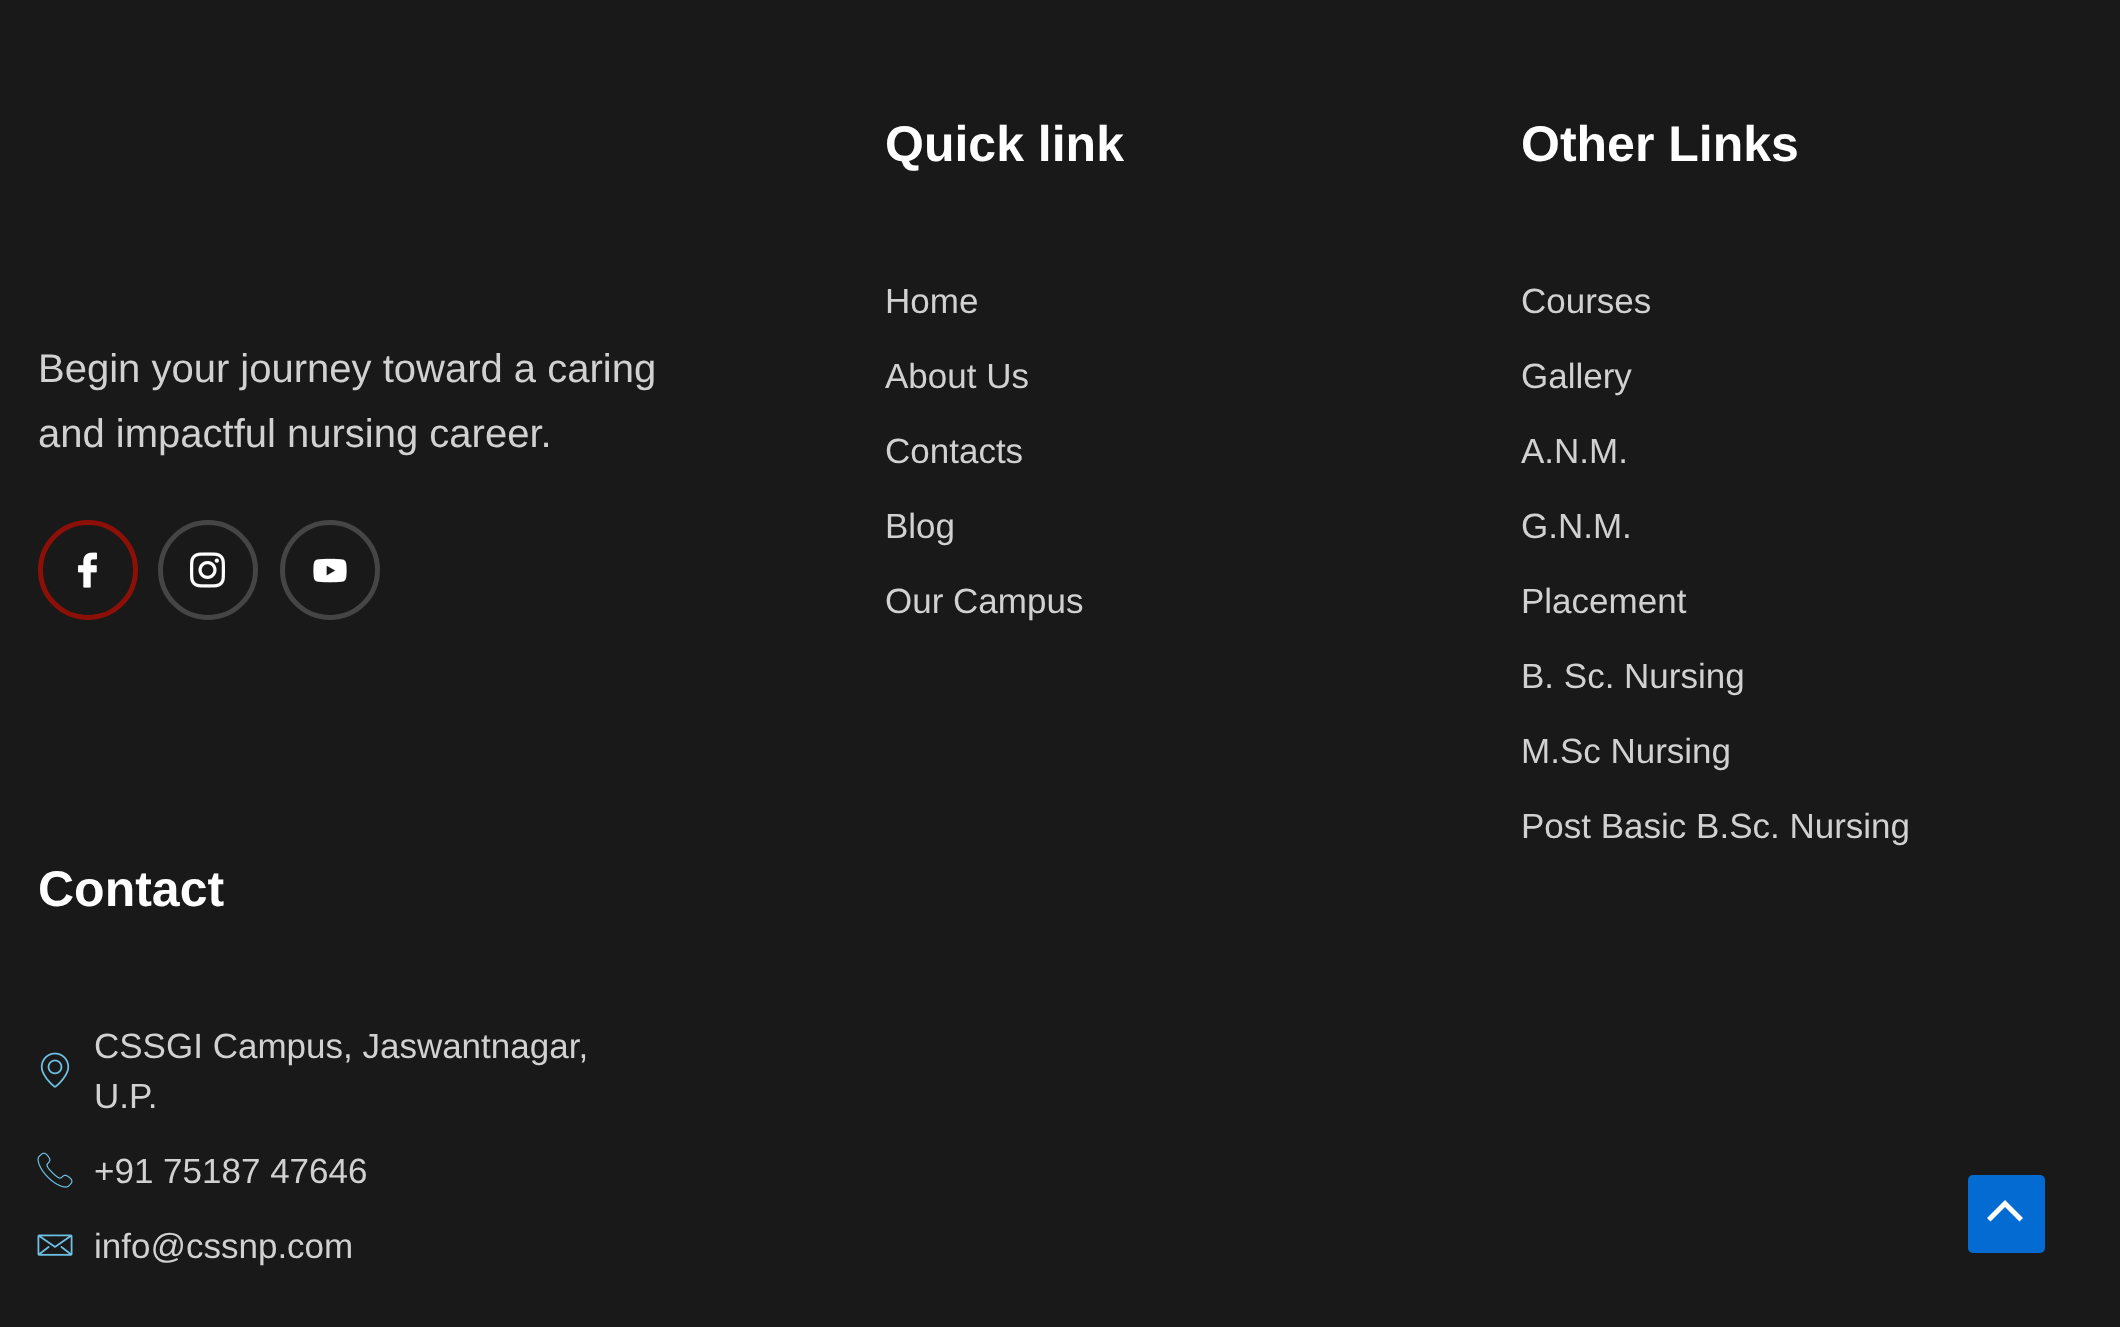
<svg xmlns="http://www.w3.org/2000/svg" width="2120" height="1327">
	<rect width="100%" height="100%" fill="#191919" />
	<g font-family="Liberation Sans" font-size="40" fill="#D1D1D1">
		<text x="38" y="382">Begin your journey toward a caring</text>
		<text x="38" y="447">and impactful nursing career.</text>
	</g>
	<circle cx="88" cy="570" r="47.5" fill="none" stroke="#8C1007" stroke-width="5" />
	<image x="78" y="552" width="19" height="36" href="assets/img1.png" />
	<circle cx="208" cy="570" r="47.5" fill="none" stroke="#454545" stroke-width="5" />
	<image x="190" y="552" width="35" height="36" href="assets/img2.png" />
	<circle cx="330" cy="570" r="47.5" fill="none" stroke="#454545" stroke-width="5" />
	<image x="313" y="558" width="34" height="25" href="assets/img3.png" />
	<text x="885" y="161" font-family="Liberation Sans" font-size="50" font-weight="700" fill="#FFFFFF">Quick link</text>
	<g font-family="Liberation Sans" font-size="35" fill="#D1D1D1">
		<text x="885" y="313">Home</text>
		<text x="885" y="388">About Us</text>
		<text x="885" y="463">Contacts</text>
		<text x="885" y="538">Blog</text>
		<text x="885" y="613">Our Campus</text>
	</g>
	<text x="1521" y="161" font-family="Liberation Sans" font-size="50" font-weight="700" fill="#FFFFFF">Other Links</text>
	<g font-family="Liberation Sans" font-size="35" fill="#D1D1D1">
		<text x="1521" y="313">Courses</text>
		<text x="1521" y="388">Gallery</text>
		<text x="1521" y="463">A.N.M.</text>
		<text x="1521" y="538">G.N.M.</text>
		<text x="1521" y="613">Placement</text>
		<text x="1521" y="688">B. Sc. Nursing</text>
		<text x="1521" y="763">M.Sc Nursing</text>
		<text x="1521" y="838">Post Basic B.Sc. Nursing</text>
	</g>
	<text x="38" y="906" font-family="Liberation Sans" font-size="50" font-weight="700" fill="#FFFFFF">Contact</text>
	<image x="40" y="1052" width="30" height="36" href="assets/img4.png" />
	<g font-family="Liberation Sans" font-size="35" fill="#D1D1D1">
		<text x="94" y="1058">CSSGI Campus, Jaswantnagar,</text>
		<text x="94" y="1108">U.P.</text>
	</g>
	<image x="37" y="1152" width="36" height="36" href="assets/img5.png" />
	<text x="94" y="1183" font-family="Liberation Sans" font-size="35" fill="#D1D1D1">+91 75187 47646</text>
	<image x="37" y="1234" width="36" height="22" href="assets/img6.png" />
	<text x="94" y="1258" font-family="Liberation Sans" font-size="35" fill="#D1D1D1">info@cssnp.com</text>
	<rect x="1968" y="1175" width="77" height="78" rx="5" fill="#046BD2" />
	<path d="M2023 1218L2005 1200L1987 1218L1990.5 1221.5L2005 1207L2019.5 1221.5Z" fill="#FFFFFF" />
</svg>
